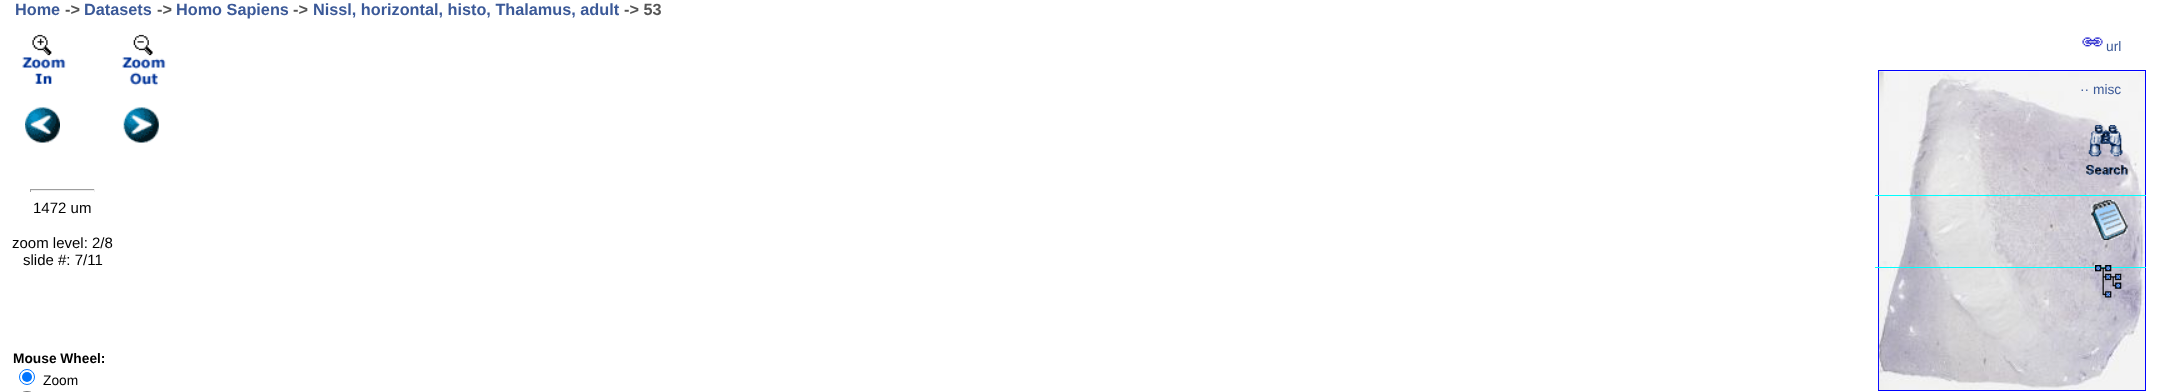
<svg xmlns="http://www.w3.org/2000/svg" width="2158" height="392">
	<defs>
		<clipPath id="clip1"><rect x="1875" y="70" width="271" height="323" /></clipPath>
	</defs>
	<rect width="100%" height="100%" fill="#FFFFFF" />
	<text x="15" y="15" font-family="Liberation Sans" font-size="16.25" font-weight="700" fill="#3B5998">Home</text>
	<text x="65" y="15" font-family="Liberation Sans" font-size="16.25" font-weight="700" fill="#555555">-&gt;</text>
	<text x="84" y="15" font-family="Liberation Sans" font-size="16.25" font-weight="700" fill="#3B5998">Datasets</text>
	<text x="157" y="15" font-family="Liberation Sans" font-size="16.25" font-weight="700" fill="#555555">-&gt;</text>
	<text x="176" y="15" font-family="Liberation Sans" font-size="16.25" font-weight="700" fill="#3B5998">Homo Sapiens</text>
	<text x="293" y="15" font-family="Liberation Sans" font-size="16.25" font-weight="700" fill="#555555">-&gt;</text>
	<text x="313" y="15" font-family="Liberation Sans" font-size="16.25" font-weight="700" fill="#3B5998">Nissl, horizontal, histo, Thalamus, adult</text>
	<text x="624" y="15" font-family="Liberation Sans" font-size="16.25" font-weight="700" fill="#555555">-&gt; 53</text>
	<image x="22" y="34" width="44" height="50" href="assets/img1.png" />
	<image x="122" y="34" width="44" height="52" href="assets/img2.png" />
	<image x="25" y="107" width="35" height="36" href="assets/img3.png" />
	<image x="123" y="107" width="36" height="36" href="assets/img4.png" />
	<rect x="1878.5" y="70.5" width="267" height="320" fill="none" stroke="#0000FF" />
	<image x="1878" y="71" width="267" height="319" href="assets/img5.png" />
	<g clip-path="url(#clip1)">
		<rect x="1816.5" y="195.5" width="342" height="72" fill="none" stroke="#00FFFF" />
	</g>
	<image x="2082" y="37" width="21" height="10" href="assets/img6.png" />
	<g font-family="Liberation Sans" font-size="13.75" fill="#3B5998">
		<text x="2106" y="51">url</text>
		<text x="2080" y="94">·· misc</text>
	</g>
	<image x="2086" y="125" width="42" height="50" href="assets/img7.png" />
	<rect x="30" y="189" width="65" height="1" fill="#9F9F9F" />
	<rect x="94" y="189" width="1" height="3" fill="#EEEEEE" />
	<rect x="30" y="190" width="65" height="1" fill="#EEEEEE" />
	<rect x="30" y="189" width="1" height="3" fill="#9F9F9F" />
	<g font-family="Liberation Sans" font-size="15" fill="#000000">
		<text x="33" y="213">1472 um</text>
		<text x="12" y="248">zoom level: 2/8</text>
		<text x="23" y="265">slide #: 7/11</text>
	</g>
	<image x="2091" y="200" width="37" height="40" href="assets/img8.png" />
	<image x="2095" y="265" width="27" height="33" href="assets/img9.png" />
	<text x="13" y="363" font-family="Liberation Sans" font-size="13.75" font-weight="700" fill="#000000">Mouse Wheel:</text>
	<circle cx="27" cy="377" r="7.5" fill="none" stroke="#0075FF" />
	<circle cx="27" cy="377" r="5" fill="#0075FF" />
	<text x="43" y="385" font-family="Liberation Sans" font-size="13.75" fill="#000000">Zoom</text>
	<rect x="19.5" y="391.5" width="15" height="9" rx="7.5" fill="none" stroke="#767676" />
</svg>
